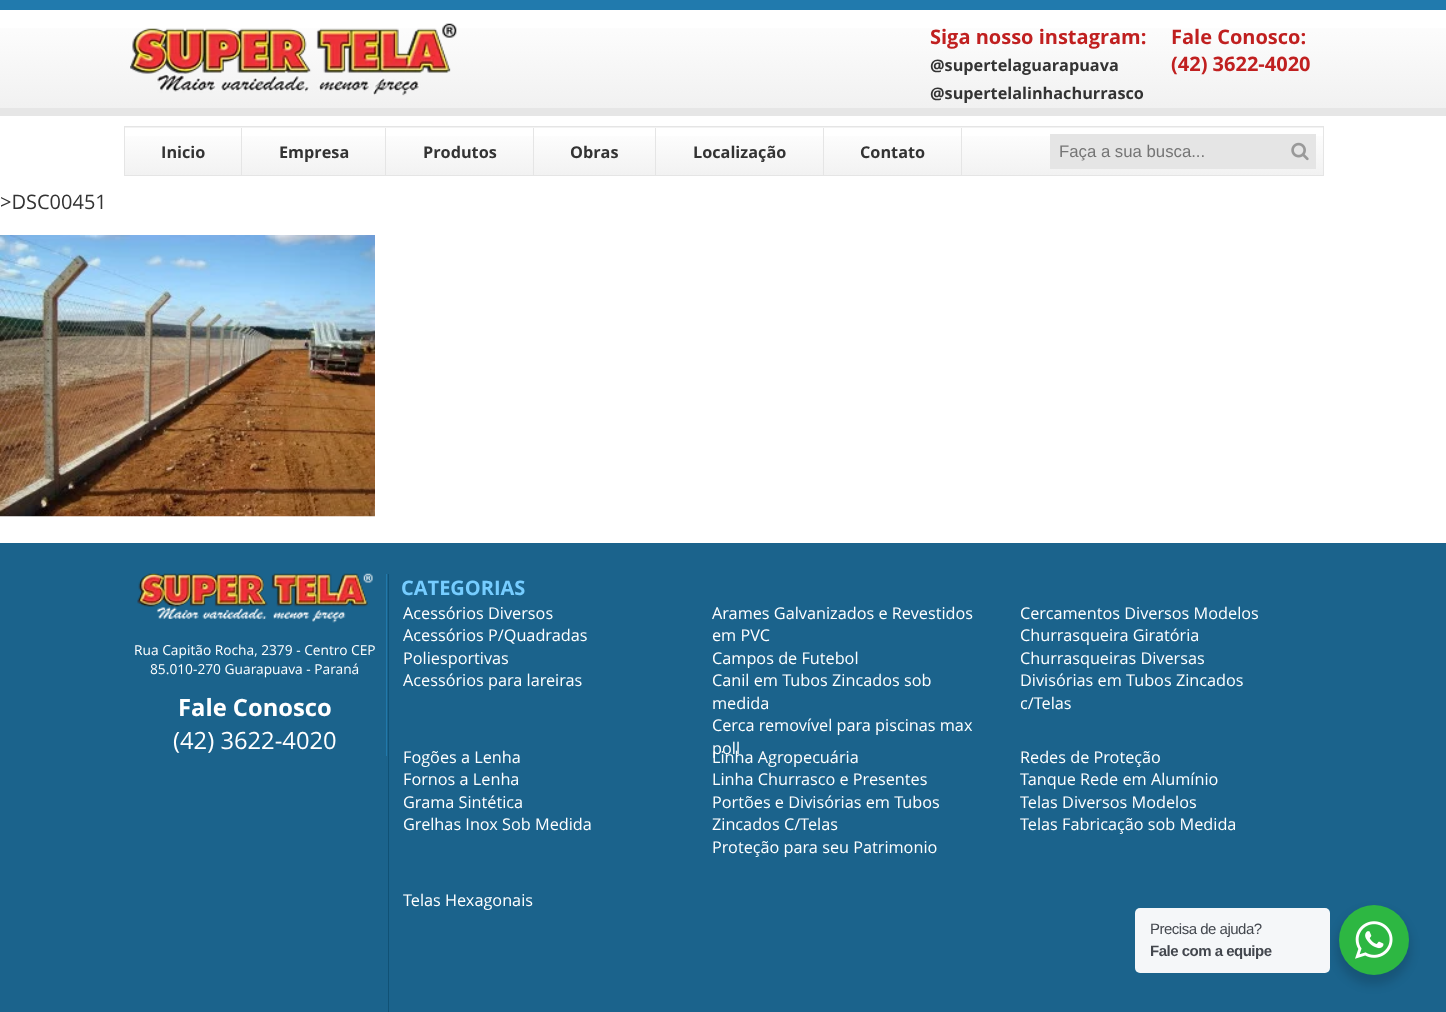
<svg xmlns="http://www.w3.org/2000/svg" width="1446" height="1012">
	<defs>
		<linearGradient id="g1" gradientUnits="userSpaceOnUse" x1="723" y1="10" x2="723" y2="108"><stop offset="0" stop-color="#FFFFFF" /><stop offset="1" stop-color="#F1F1F1" /></linearGradient>
		<linearGradient id="g2" gradientUnits="userSpaceOnUse" x1="724" y1="80" x2="724" y2="128"><stop offset="0" stop-color="#FFFFFF" /><stop offset="1" stop-color="#F2F2F2" /></linearGradient>
		<linearGradient id="g3" gradientUnits="userSpaceOnUse" x1="724" y1="127" x2="724" y2="175"><stop offset="0" stop-color="#FFFFFF" /><stop offset="1" stop-color="#F2F2F2" /></linearGradient>
	</defs>
	<rect width="100%" height="100%" fill="#FFFFFF" />
	<rect x="0" y="0" width="1446" height="10" fill="#217AAD" />
	<rect x="0" y="28" width="1446" height="80" fill="url(#g1)" />
	<rect x="0" y="108" width="1446" height="8" fill="#E6E6E6" />
	<image x="130" y="23" width="327" height="73" href="assets/img1.png" />
	<text x="930" y="44" font-family="Open Sans" font-size="20" font-weight="700" fill="#C02020">Siga nosso instagram:</text>
	<g font-family="Open Sans" font-size="16.25" font-weight="700" fill="#333333">
		<text x="930" y="71">@supertelaguarapuava</text>
		<text x="930" y="99">@supertelalinhachurrasco</text>
	</g>
	<g font-family="Open Sans" font-size="20" font-weight="700" fill="#C02020">
		<text x="1171" y="44">Fale Conosco:</text>
		<text x="1171" y="71">(42) 3622-4020</text>
	</g>
	<rect x="124" y="127" width="1200" height="1" fill="url(#g2)" />
	<rect x="125" y="136" width="1198" height="39" fill="url(#g3)" />
	<rect x="124.5" y="126.5" width="1199" height="49" fill="none" stroke="#E5E5E5" />
	<rect x="241" y="128" width="1" height="47" fill="#E5E5E5" />
	<text x="161" y="158" font-family="Open Sans" font-size="16.25" font-weight="700" fill="#333333">Inicio</text>
	<rect x="385" y="128" width="1" height="47" fill="#E5E5E5" />
	<text x="279" y="158" font-family="Open Sans" font-size="16.25" font-weight="700" fill="#333333">Empresa</text>
	<rect x="533" y="128" width="1" height="47" fill="#E5E5E5" />
	<text x="423" y="158" font-family="Open Sans" font-size="16.25" font-weight="700" fill="#333333">Produtos</text>
	<rect x="655" y="128" width="1" height="47" fill="#E5E5E5" />
	<text x="570" y="158" font-family="Open Sans" font-size="16.25" font-weight="700" fill="#333333">Obras</text>
	<rect x="823" y="128" width="1" height="47" fill="#E5E5E5" />
	<text x="693" y="158" font-family="Open Sans" font-size="16.25" font-weight="700" fill="#333333">Localização</text>
	<rect x="961" y="128" width="1" height="47" fill="#E5E5E5" />
	<text x="860" y="158" font-family="Open Sans" font-size="16.25" font-weight="700" fill="#333333">Contato</text>
	<rect x="1050" y="134" width="266" height="35" fill="#E5E5E5" />
	<text x="1059" y="157" font-family="Liberation Sans" font-size="16.75" fill="#757575">Faça a sua busca...</text>
	<image x="1291" y="142" width="18" height="19" href="assets/img2.png" />
	<text x="0" y="209" font-family="Open Sans" font-size="20" fill="#333333">&gt;DSC00451</text>
	<image x="0" y="235" width="375" height="282" href="assets/img3.png" />
	<rect x="0" y="543" width="1446" height="469" fill="#1B638C" />
	<rect x="386" y="574" width="1" height="182" fill="#2179AB" />
	<image x="137" y="573" width="236" height="50" href="assets/img4.png" />
	<g font-family="Open Sans" font-size="13.75" fill="#FFFFFF">
		<text x="134" y="655">Rua Capitão Rocha, 2379 - Centro CEP</text>
		<text x="150" y="674">85.010-270 Guarapuava - Paraná</text>
	</g>
	<text x="178" y="716" font-family="Open Sans" font-size="23.75" font-weight="700" fill="#FFFFFF">Fale Conosco</text>
	<text x="173" y="749" font-family="Open Sans" font-size="23.75" fill="#FFFFFF">(42) 3622-4020</text>
	<rect x="388" y="574" width="1" height="438" fill="#105175" />
	<text x="401" y="595" font-family="Open Sans" font-size="20" font-weight="700" fill="#76CDFF">CATEGORIAS</text>
	<g font-family="Open Sans" font-size="16.25" fill="#FFFFFF">
		<text x="403" y="619">Acessórios Diversos</text>
		<text x="403" y="641">Acessórios P/Quadradas</text>
		<text x="403" y="664">Poliesportivas</text>
		<text x="403" y="686">Acessórios para lareiras</text>
		<text x="712" y="619">Arames Galvanizados e Revestidos</text>
		<text x="712" y="641">em PVC</text>
		<text x="712" y="664">Campos de Futebol</text>
		<text x="712" y="686">Canil em Tubos Zincados sob</text>
		<text x="712" y="709">medida</text>
		<text x="712" y="731">Cerca removível para piscinas max</text>
		<text x="712" y="754">poll</text>
		<text x="1020" y="619">Cercamentos Diversos Modelos</text>
		<text x="1020" y="641">Churrasqueira Giratória</text>
		<text x="1020" y="664">Churrasqueiras Diversas</text>
		<text x="1020" y="686">Divisórias em Tubos Zincados</text>
		<text x="1020" y="709">c/Telas</text>
		<text x="403" y="763">Fogões a Lenha</text>
		<text x="403" y="785">Fornos a Lenha</text>
		<text x="403" y="808">Grama Sintética</text>
		<text x="403" y="830">Grelhas Inox Sob Medida</text>
		<text x="712" y="763">Linha Agropecuária</text>
		<text x="712" y="785">Linha Churrasco e Presentes</text>
		<text x="712" y="808">Portões e Divisórias em Tubos</text>
		<text x="712" y="830">Zincados C/Telas</text>
		<text x="712" y="853">Proteção para seu Patrimonio</text>
		<text x="1020" y="763">Redes de Proteção</text>
		<text x="1020" y="785">Tanque Rede em Alumínio</text>
		<text x="1020" y="808">Telas Diversos Modelos</text>
		<text x="1020" y="830">Telas Fabricação sob Medida</text>
		<text x="403" y="906">Telas Hexagonais</text>
	</g>
	<rect x="1336" y="910" width="75" height="75" rx="37.5" fill="#000000" fill-opacity="0.14" filter="blur(5px)" />
	<rect x="1135" y="908" width="195" height="65" rx="5" fill="#F5F7F9" />
	<text x="1150" y="934" font-family="Liberation Sans" font-size="15" letter-spacing="-0.5" fill="#43474E">Precisa de ajuda?</text>
	<text x="1150" y="956" font-family="Liberation Sans" font-size="15" font-weight="700" letter-spacing="-0.5" fill="#43474E">Fale com a equipe</text>
	<circle cx="1374" cy="940" r="35" fill="#2DB742" />
	<image x="1355" y="921" width="38" height="38" href="assets/img5.png" />
</svg>
